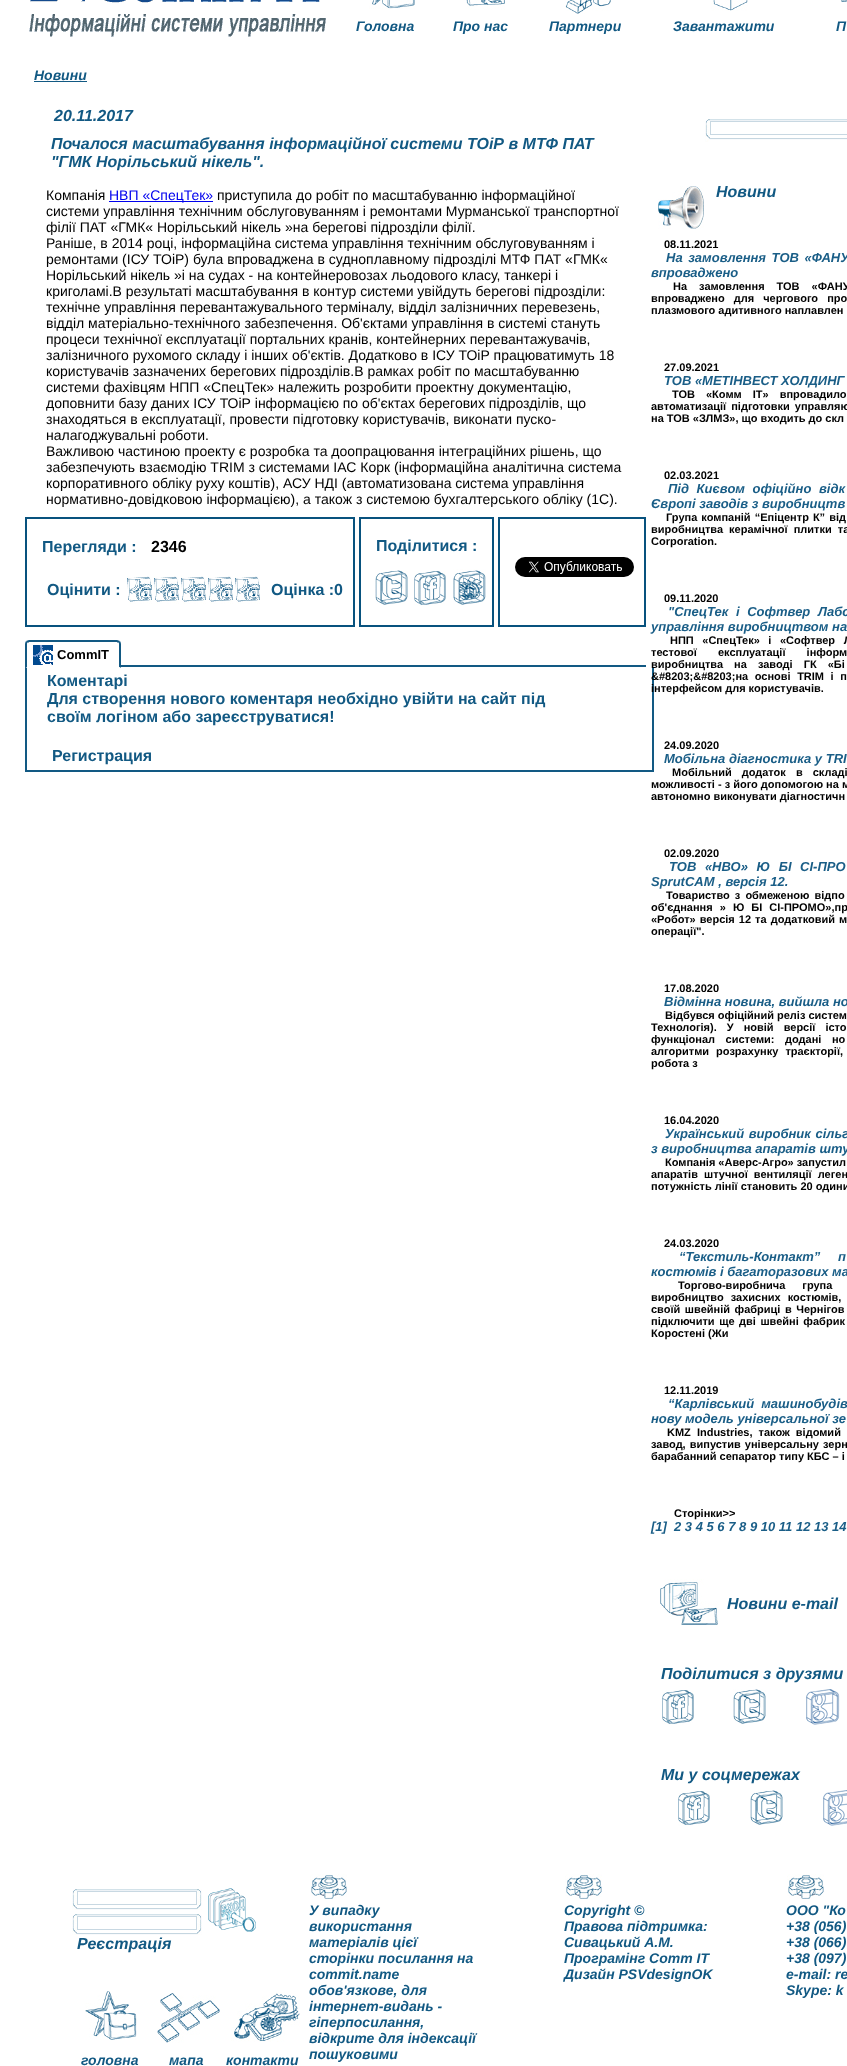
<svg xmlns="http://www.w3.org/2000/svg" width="847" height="2066">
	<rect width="100%" height="100%" fill="#FFFFFF" />
	<image x="29" y="0" width="297" height="37" href="assets/img1.png" />
	<image x="369" y="0" width="46" height="9" href="assets/img2.png" />
	<text x="356" y="31" font-family="Liberation Sans" font-size="14" font-weight="700" font-style="italic" fill="#125983">Головна</text>
	<image x="466" y="0" width="39" height="10" href="assets/img3.png" />
	<text x="453" y="31" font-family="Liberation Sans" font-size="14" font-weight="700" font-style="italic" fill="#125983">Про нас</text>
	<image x="565" y="0" width="46" height="14" href="assets/img4.png" />
	<text x="549" y="31" font-family="Liberation Sans" font-size="14" font-weight="700" font-style="italic" fill="#125983">Партнери</text>
	<image x="711" y="0" width="37" height="11" href="assets/img5.png" />
	<text x="673" y="31" font-family="Liberation Sans" font-size="14" font-weight="700" font-style="italic" fill="#125983">Завантажити</text>
	<image x="841" y="0" width="6" height="2" href="assets/img6.png" />
	<g font-family="Liberation Sans" font-size="14" font-weight="700" font-style="italic" fill="#125983">
		<text x="836" y="31">П</text>
		<text x="34" y="80">Новини</text>
	</g>
	<rect x="34" y="81" width="53" height="1" fill="#125983" />
	<g font-family="Liberation Sans" font-size="16" font-weight="700" font-style="italic" fill="#125983">
		<text x="54" y="121">20.11.2017</text>
		<text x="51" y="149">Почалося масштабування інформаційної системи ТОіР в МТФ ПАТ</text>
		<text x="51" y="167">"ГМК Норільський нікель".</text>
	</g>
	<text x="46" y="200" font-family="Liberation Sans" font-size="14" fill="#000000">Компанія</text>
	<rect x="109" y="201" width="104" height="1" fill="#0000EE" />
	<text x="109" y="200" font-family="Liberation Sans" font-size="14" fill="#0000EE">НВП «СпецТек»</text>
	<g font-family="Liberation Sans" font-size="14" fill="#000000">
		<text x="217" y="200">приступила до робіт по масштабуванню інформаційної</text>
		<text x="46" y="216">системи управління технічним обслуговуванням і ремонтами Мурманської транспортної</text>
		<text x="46" y="232">філії ПАТ «ГМК« Норільський нікель »на берегові підрозділи філії.</text>
		<text x="46" y="248">Раніше, в 2014 році, інформаційна система управління технічним обслуговуванням і</text>
		<text x="46" y="264">ремонтами (ІСУ ТОіР) була впроваджена в судноплавному підрозділі МТФ ПАТ «ГМК«</text>
		<text x="46" y="280">Норільський нікель »і на судах - на контейнеровозах льодового класу, танкері і</text>
		<text x="46" y="296">криголамі.В результаті масштабування в контур системи увійдуть берегові підрозділи:</text>
		<text x="46" y="312">технічне управління перевантажувального терміналу, відділ залізничних перевезень,</text>
		<text x="46" y="328">відділ матеріально-технічного забезпечення. Об'єктами управління в системі стануть</text>
		<text x="46" y="344">процеси технічної експлуатації портальних кранів, контейнерних перевантажувачів,</text>
		<text x="46" y="360">залізничного рухомого складу і інших об'єктів. Додатково в ІСУ ТОіР працюватимуть 18</text>
		<text x="46" y="376">користувачів зазначених берегових підрозділів.В рамках робіт по масштабуванню</text>
		<text x="46" y="392">системи фахівцям НПП «СпецТек» належить розробити проектну документацію,</text>
		<text x="46" y="408">доповнити базу даних ІСУ ТОіР інформацією по об'єктах берегових підрозділів, що</text>
		<text x="46" y="424">знаходяться в експлуатації, провести підготовку користувачів, виконати пуско-</text>
		<text x="46" y="440">налагоджувальні роботи.</text>
		<text x="46" y="456">Важливою частиною проекту є розробка та доопрацювання інтеграційних рішень, що</text>
		<text x="46" y="472">забезпечують взаємодію TRIM з системами ІАС Корк (інформаційна аналітична система</text>
		<text x="46" y="488">корпоративного обліку руху коштів), АСУ НДІ (автоматизована система управління</text>
		<text x="46" y="504">нормативно-довідковою інформацією), а також з системою бухгалтерського обліку (1С).</text>
	</g>
	<rect x="26" y="518" width="328" height="108" fill="none" stroke="#08527E" stroke-width="2" />
	<text x="42" y="552" font-family="Liberation Sans" font-size="16" font-weight="700" fill="#125983">Перегляди :</text>
	<text x="151" y="552" font-family="Liberation Sans" font-size="16" font-weight="700" fill="#000000">2346</text>
	<text x="47" y="595" font-family="Liberation Sans" font-size="16" font-weight="700" fill="#125983">Оцінити :</text>
	<image x="127" y="576" width="25" height="28" href="assets/img7.png" />
	<image x="154" y="576" width="25" height="28" href="assets/img7.png" />
	<image x="181" y="576" width="25" height="28" href="assets/img7.png" />
	<image x="208" y="576" width="25" height="28" href="assets/img7.png" />
	<image x="235" y="576" width="25" height="28" href="assets/img7.png" />
	<text x="271" y="595" font-family="Liberation Sans" font-size="16" font-weight="700" fill="#125983">Оцінка :0</text>
	<rect x="360" y="518" width="133" height="108" fill="none" stroke="#08527E" stroke-width="2" />
	<text x="376" y="551" font-family="Liberation Sans" font-size="16" font-weight="700" fill="#125983">Поділитися :</text>
	<image x="375" y="570" width="33" height="35" href="assets/img8.png" />
	<image x="414" y="571" width="32" height="35" href="assets/img9.png" />
	<image x="453" y="569" width="33" height="36" href="assets/img10.png" />
	<rect x="499" y="518" width="146" height="108" fill="none" stroke="#08527E" stroke-width="2" />
	<image x="515" y="557" width="119" height="20" href="assets/img11.png" />
	<rect x="121" y="665" width="525" height="2" fill="#125983" />
	<image x="33" y="645" width="20" height="20" href="assets/img12.png" />
	<text x="57" y="659" font-family="Liberation Sans" font-size="13" font-weight="700" fill="#000000">CommIT</text>
	<path d="M29 640L26 641L28 643L29 642H117L118 643L120 641L117 640Z" fill="#125983" />
	<path d="M121 668V644C121 643 120.5 642 120 641L118.5 642.5C119 643 119 643.5 119 644V667Z" fill="#125983" />
	<rect x="652" y="667" width="2" height="105" fill="#125983" />
	<rect x="25" y="770" width="629" height="2" fill="#125983" />
	<rect x="25" y="667" width="2" height="105" fill="#125983" />
	<path d="M121 668L119 667H27L25 668Z" fill="#FFFFFF" />
	<path d="M25 668L27 667V644C27 643.5 27 643 27.5 642.5L26 641C25.5 642 25 643 25 644Z" fill="#125983" />
	<g font-family="Liberation Sans" font-size="16" font-weight="700" fill="#125983">
		<text x="47" y="686">Коментарі</text>
		<text x="47" y="704">Для створення нового коментаря необхідно увійти на сайт під</text>
		<text x="47" y="722">своїм логіном або зареєструватися!</text>
		<text x="52" y="761">Регистрация</text>
	</g>
	<image x="710" y="119" width="137" height="21" href="assets/img13.png" />
	<image x="705" y="119" width="5" height="23" href="assets/img14.png" />
	<rect x="710.5" y="121.5" width="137" height="13" fill="none" stroke="#C8D8E2" />
	<image x="658" y="186" width="46" height="43" href="assets/img15.png" />
	<text x="716" y="197" font-family="Liberation Sans" font-size="16" font-weight="700" font-style="italic" fill="#125983">Новини</text>
	<text x="664" y="248" font-family="Liberation Sans" font-size="11" font-weight="700" fill="#000000">08.11.2021</text>
	<g font-family="Liberation Sans" font-size="13" font-weight="700" font-style="italic" fill="#1A5E87">
		<text x="666" y="262" word-spacing="2">На замовлення ТОВ «ФАНУ</text>
		<text x="651" y="277">впроваджено</text>
	</g>
	<g font-family="Liberation Sans" font-size="11" font-weight="700" fill="#000000">
		<text x="673" y="290" word-spacing="9">На замовлення ТОВ «ФАНУ</text>
		<text x="651" y="302" word-spacing="6">впроваджено для чергового про</text>
		<text x="651" y="314">плазмового адитивного наплавлен</text>
		<text x="664" y="371">27.09.2021</text>
	</g>
	<text x="664" y="385" font-family="Liberation Sans" font-size="13" font-weight="700" font-style="italic" fill="#1A5E87">ТОВ «МЕТІНВЕСТ ХОЛДИНГ</text>
	<g font-family="Liberation Sans" font-size="11" font-weight="700" fill="#000000">
		<text x="672" y="398" word-spacing="8">ТОВ «Комм ІТ» впровадило</text>
		<text x="651" y="410" word-spacing="2">автоматизації підготовки управляю</text>
		<text x="651" y="422">на ТОВ «ЗЛМЗ», що входить до скл</text>
		<text x="664" y="479">02.03.2021</text>
	</g>
	<g font-family="Liberation Sans" font-size="13" font-weight="700" font-style="italic" fill="#1A5E87">
		<text x="668" y="493" word-spacing="4">Під Києвом офіційно відк</text>
		<text x="651" y="508">Європі заводів з виробництв</text>
	</g>
	<g font-family="Liberation Sans" font-size="11" font-weight="700" fill="#000000">
		<text x="666" y="521" word-spacing="1">Група компаній “Епіцентр К” від</text>
		<text x="651" y="533" word-spacing="3">виробництва керамічної плитки та</text>
		<text x="651" y="545">Corporation.</text>
		<text x="664" y="602">09.11.2020</text>
	</g>
	<g font-family="Liberation Sans" font-size="13" font-weight="700" font-style="italic" fill="#1A5E87">
		<text x="668" y="616" word-spacing="4">"СпецТек і Софтвер Лабс</text>
		<text x="651" y="631">управління виробництвом на</text>
	</g>
	<g font-family="Liberation Sans" font-size="11" font-weight="700" fill="#000000">
		<text x="670" y="644" word-spacing="5.5">НПП «СпецТек» і «Софтвер Л</text>
		<text x="651" y="656" word-spacing="18">тестової експлуатації інформ</text>
		<text x="651" y="668" word-spacing="8">виробництва на заводі ГК «Бі</text>
		<text x="651" y="680" word-spacing="3.5">&amp;#8203;&amp;#8203;на основі TRIM і п</text>
		<text x="651" y="692">інтерфейсом для користувачів.</text>
		<text x="664" y="749">24.09.2020</text>
	</g>
	<text x="664" y="763" font-family="Liberation Sans" font-size="13" font-weight="700" font-style="italic" fill="#1A5E87">Мобільна діагностика у TRI</text>
	<g font-family="Liberation Sans" font-size="11" font-weight="700" fill="#000000">
		<text x="672" y="776" word-spacing="7">Мобільний додаток в складі</text>
		<text x="651" y="788">можливості - з його допомогою на м</text>
		<text x="651" y="800">автономно виконувати діагностичн</text>
		<text x="664" y="857">02.09.2020</text>
	</g>
	<g font-family="Liberation Sans" font-size="13" font-weight="700" font-style="italic" fill="#1A5E87">
		<text x="669" y="871" word-spacing="5">ТОВ «НВО» Ю БІ СІ-ПРО</text>
		<text x="651" y="886">SprutCAM , версія 12.</text>
	</g>
	<g font-family="Liberation Sans" font-size="11" font-weight="700" fill="#000000">
		<text x="666" y="899" word-spacing="2">Товариство з обмеженою відпо</text>
		<text x="651" y="911" word-spacing="4">об'єднання » Ю БІ СІ-ПРОМО»,пр</text>
		<text x="651" y="923" word-spacing="1">«Робот» версія 12 та додатковий м</text>
		<text x="651" y="935">операції".</text>
		<text x="664" y="992">17.08.2020</text>
	</g>
	<text x="664" y="1006" font-family="Liberation Sans" font-size="13" font-weight="700" font-style="italic" fill="#1A5E87">Відмінна новина, вийшла но</text>
	<g font-family="Liberation Sans" font-size="11" font-weight="700" fill="#000000">
		<text x="665" y="1019">Відбувся офіційний реліз систем</text>
		<text x="651" y="1031" word-spacing="7">Технологія). У новій версії істо</text>
		<text x="651" y="1043" word-spacing="7.5">функціонал системи: додані но</text>
		<text x="651" y="1055" word-spacing="4">алгоритми розрахунку траєкторії,</text>
		<text x="651" y="1067">робота з</text>
		<text x="664" y="1124">16.04.2020</text>
	</g>
	<g font-family="Liberation Sans" font-size="13" font-weight="700" font-style="italic" fill="#1A5E87">
		<text x="665" y="1138" word-spacing="1">Український виробник сільг</text>
		<text x="651" y="1153">з виробництва апаратів шту</text>
	</g>
	<g font-family="Liberation Sans" font-size="11" font-weight="700" fill="#000000">
		<text x="665" y="1166">Компанія «Аверс-Агро» запустил</text>
		<text x="651" y="1178" word-spacing="3">апаратів штучної вентиляції леген</text>
		<text x="651" y="1190">потужність лінії становить 20 одини</text>
		<text x="664" y="1247">24.03.2020</text>
	</g>
	<g font-family="Liberation Sans" font-size="13" font-weight="700" font-style="italic" fill="#1A5E87">
		<text x="679" y="1261" word-spacing="14">“Текстиль-Контакт” п</text>
		<text x="651" y="1276">костюмів і багаторазових ма</text>
	</g>
	<g font-family="Liberation Sans" font-size="11" font-weight="700" fill="#000000">
		<text x="678" y="1289" word-spacing="14">Торгово-виробнича група</text>
		<text x="651" y="1301" word-spacing="4">виробництво захисних костюмів,</text>
		<text x="651" y="1313" word-spacing="1.5">своїй швейній фабриці в Чернігов</text>
		<text x="651" y="1325" word-spacing="1.5">підключити ще дві швейні фабрик</text>
		<text x="651" y="1337">Коростені (Жи</text>
		<text x="664" y="1394">12.11.2019</text>
	</g>
	<g font-family="Liberation Sans" font-size="13" font-weight="700" font-style="italic" fill="#1A5E87">
		<text x="668" y="1408" word-spacing="3.5">“Карлівський машинобудів</text>
		<text x="651" y="1423">нову модель універсальної зе</text>
	</g>
	<g font-family="Liberation Sans" font-size="11" font-weight="700" fill="#000000">
		<text x="667" y="1436" word-spacing="3">KMZ Industries, також відомий</text>
		<text x="651" y="1448" word-spacing="1">завод, випустив універсальну зерн</text>
		<text x="651" y="1460">барабанний сепаратор типу КБС – і</text>
		<text x="674" y="1517">Сторінки&gt;&gt;</text>
	</g>
	<g font-family="Liberation Sans" font-size="13" font-weight="700" font-style="italic" fill="#1A5E87">
		<text x="651" y="1531">[1]</text>
		<text x="674" y="1531">2 3 4 5 6 7 8 9 10 11 12 13 14</text>
	</g>
	<image x="660" y="1579" width="59" height="46" href="assets/img16.png" />
	<g font-family="Liberation Sans" font-size="16" font-weight="700" font-style="italic" fill="#125983">
		<text x="727" y="1609">Новини e-mail</text>
		<text x="661" y="1679">Поділитися з друзями</text>
	</g>
	<image x="662" y="1690" width="32" height="35" href="assets/img9.png" />
	<image x="733" y="1689" width="33" height="35" href="assets/img8.png" />
	<image x="806" y="1689" width="34" height="36" href="assets/img17.png" />
	<text x="661" y="1780" font-family="Liberation Sans" font-size="16" font-weight="700" font-style="italic" fill="#125983">Ми у соцмережах</text>
	<image x="678" y="1791" width="32" height="35" href="assets/img9.png" />
	<image x="750" y="1790" width="33" height="35" href="assets/img8.png" />
	<image x="823" y="1790" width="24" height="36" href="assets/img18.png" />
	<image x="77" y="1889" width="120" height="21" href="assets/img19.png" />
	<image x="72" y="1889" width="5" height="21" href="assets/img20.png" />
	<rect x="77.5" y="1891.5" width="119" height="13" fill="none" stroke="#C8D8E2" />
	<image x="197" y="1889" width="5" height="21" href="assets/img21.png" />
	<image x="77" y="1914" width="120" height="21" href="assets/img19.png" />
	<image x="72" y="1914" width="5" height="21" href="assets/img20.png" />
	<rect x="77.5" y="1916.5" width="119" height="13" fill="none" stroke="#C8D8E2" />
	<image x="197" y="1914" width="5" height="21" href="assets/img21.png" />
	<image x="208" y="1888" width="48" height="44" href="assets/img22.png" />
	<text x="77" y="1949" font-family="Liberation Sans" font-size="16" font-weight="700" font-style="italic" fill="#125983">Реєстрація</text>
	<image x="85" y="1991" width="52" height="49" href="assets/img23.png" />
	<text x="81" y="2065" font-family="Liberation Sans" font-size="14" font-weight="700" font-style="italic" fill="#125983">головна</text>
	<image x="157" y="1993" width="63" height="50" href="assets/img24.png" />
	<text x="169" y="2065" font-family="Liberation Sans" font-size="14" font-weight="700" font-style="italic" fill="#125983">мапа</text>
	<image x="231" y="1992" width="69" height="50" href="assets/img25.png" />
	<text x="226" y="2065" font-family="Liberation Sans" font-size="14" font-weight="700" font-style="italic" fill="#125983">контакти</text>
	<image x="310" y="1874" width="37" height="25" href="assets/img26.png" />
	<g font-family="Liberation Sans" font-size="14" font-weight="700" font-style="italic" fill="#125983">
		<text x="309" y="1915">У випадку</text>
		<text x="309" y="1931">використання</text>
		<text x="309" y="1947">матеріалів цієї</text>
		<text x="309" y="1963">сторінки посилання на</text>
		<text x="309" y="1979">commit.name</text>
		<text x="309" y="1995">обов'язкове, для</text>
		<text x="309" y="2011">інтернет-видань -</text>
		<text x="309" y="2027">гіперпосилання,</text>
		<text x="309" y="2043">відкрите для індексації</text>
		<text x="309" y="2059">пошуковими</text>
	</g>
	<image x="565" y="1874" width="37" height="25" href="assets/img26.png" />
	<g font-family="Liberation Sans" font-size="14" font-weight="700" font-style="italic" fill="#125983">
		<text x="564" y="1915">Copyright ©</text>
		<text x="564" y="1931">Правова підтримка:</text>
		<text x="564" y="1947">Сивацький А.М.</text>
		<text x="564" y="1963">Програмінг Comm IT</text>
		<text x="564" y="1979">Дизайн PSVdesignOK</text>
	</g>
	<image x="787" y="1874" width="37" height="25" href="assets/img26.png" />
	<g font-family="Liberation Sans" font-size="14" font-weight="700" font-style="italic" fill="#125983">
		<text x="786" y="1915">ООО "Ко</text>
		<text x="786" y="1931">+38 (056)</text>
		<text x="786" y="1947">+38 (066)</text>
		<text x="786" y="1963">+38 (097)</text>
		<text x="786" y="1979">e-mail: re</text>
		<text x="786" y="1995">Skype: k</text>
	</g>
</svg>
